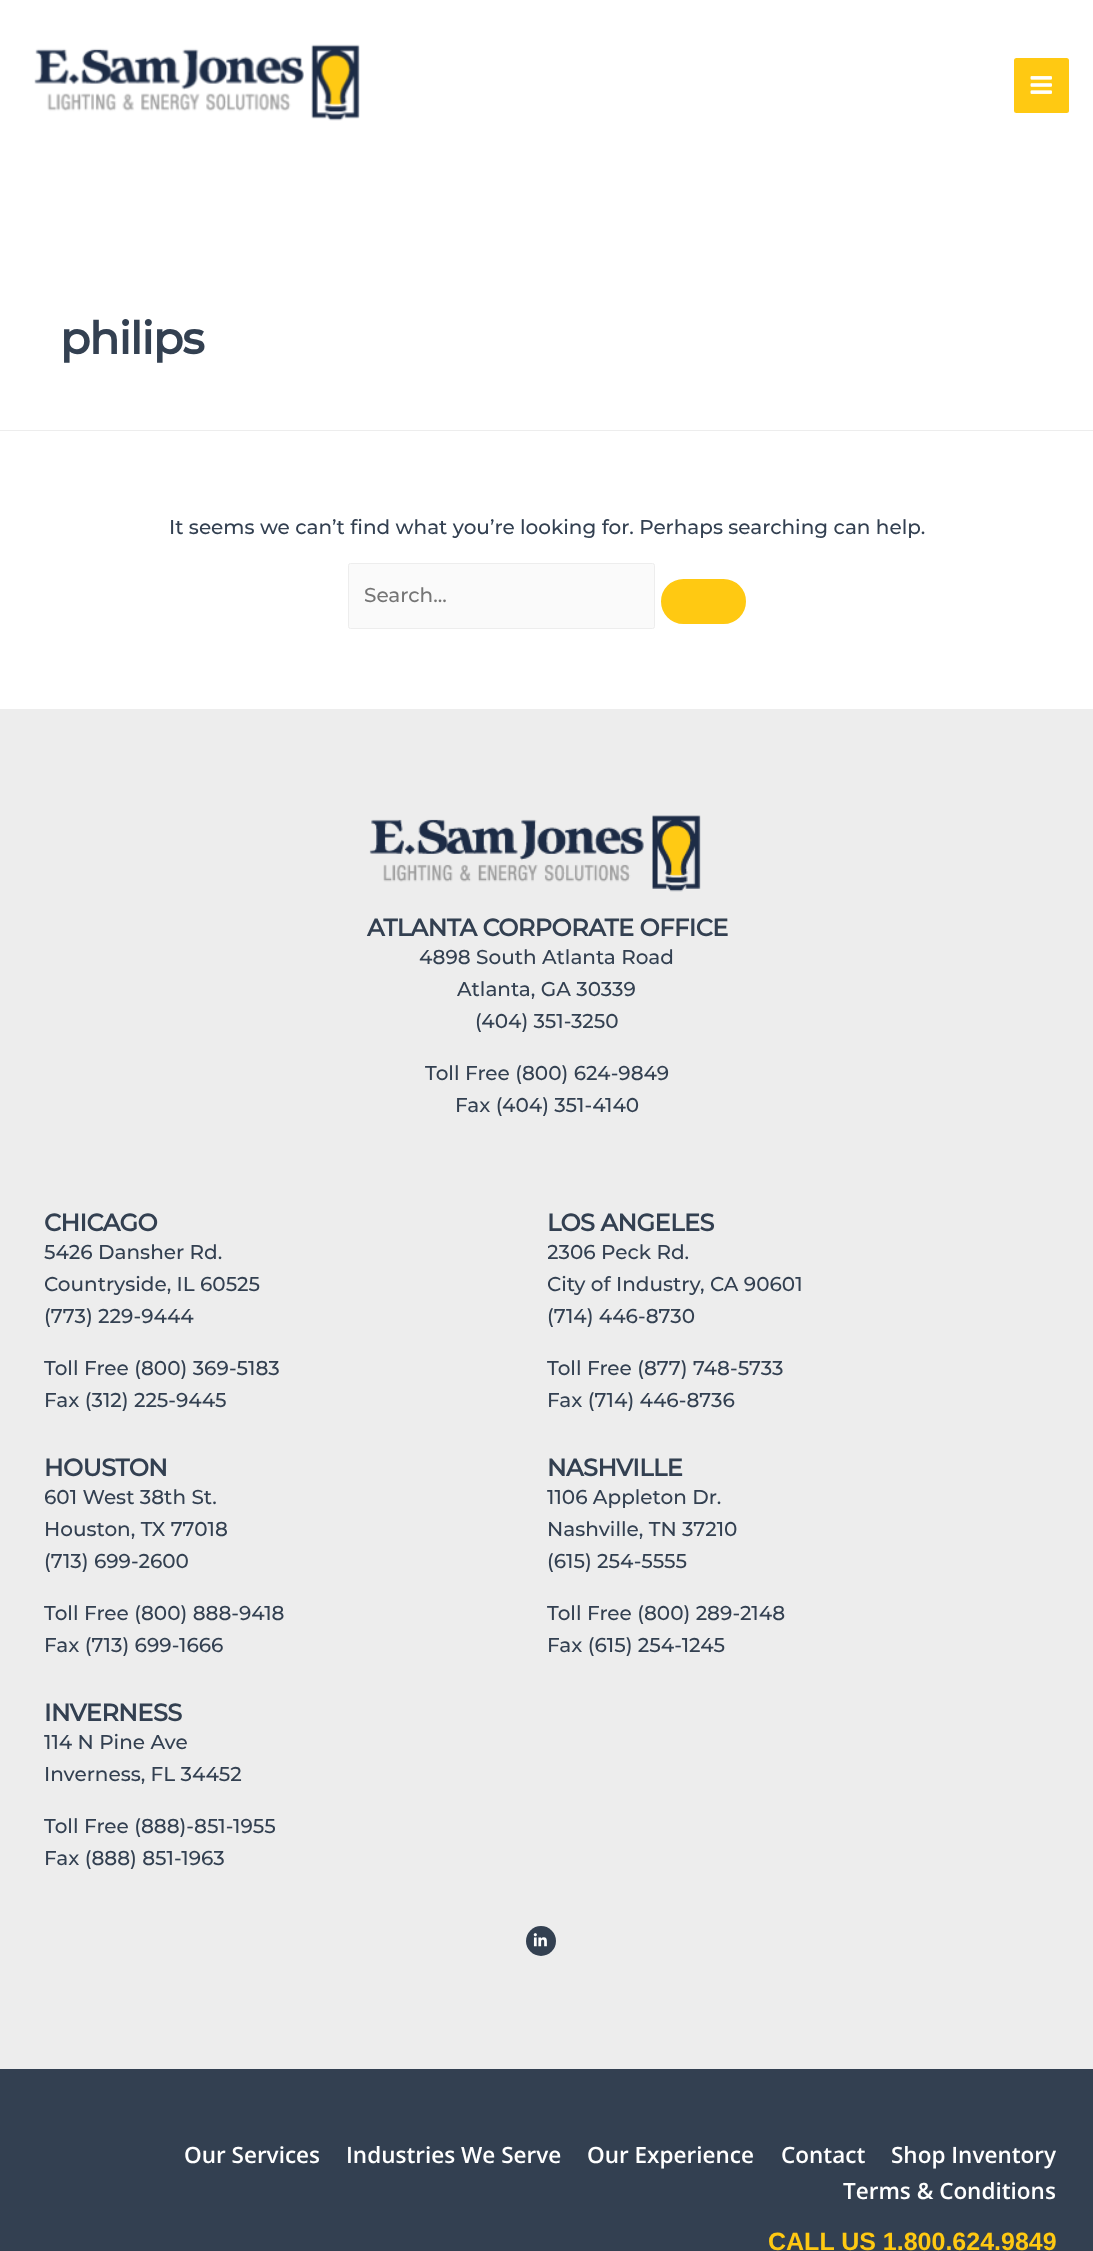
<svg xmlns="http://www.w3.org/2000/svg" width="1093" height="2251">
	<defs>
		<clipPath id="clip1"><rect x="548" y="1196" width="502" height="220" /></clipPath>
	</defs>
	<rect width="100%" height="100%" fill="#FFFFFF" />
	<image x="34" y="44" width="326" height="77" href="assets/img1.png" />
	<rect x="1014" y="58" width="55" height="55" rx="2.5" fill="#FFC912" />
	<image x="1030" y="76" width="22" height="18" href="assets/img2.png" />
	<rect x="0" y="430" width="1093" height="1" fill="#EDEDED" />
	<text x="60" y="354" font-family="Montserrat" font-size="44.5" font-weight="700" letter-spacing="-1" fill="#334051">philips</text>
	<text x="169" y="534" font-family="Montserrat" font-size="20" font-weight="500" fill="#334051">It seems we can’t find what you’re looking for. Perhaps searching can help.</text>
	<rect x="348.5" y="563.5" width="306" height="65" rx="2" fill="#FAFAFA" stroke="#EDEDED" />
	<text x="364" y="602" font-family="Montserrat" font-size="20" font-weight="500" fill="#757575">Search...</text>
	<rect x="662.5" y="580.5" width="82" height="42" rx="21" fill="#FFC912" stroke="#FFC912" stroke-width="3" />
	<rect x="0" y="709" width="1093" height="1360" fill="#EDEDED" />
	<image x="369" y="815" width="332" height="77" href="assets/img3.png" />
	<text x="367" y="936" font-family="Montserrat" font-size="24" font-weight="700" letter-spacing="-0.5" fill="#334051">ATLANTA CORPORATE OFFICE</text>
	<g font-family="Montserrat" font-size="20" font-weight="500" fill="#334051">
		<text x="419" y="964">4898 South Atlanta Road</text>
		<text x="457" y="996">Atlanta, GA 30339</text>
		<text x="475" y="1028">(404) 351-3250</text>
		<text x="425" y="1080">Toll Free (800) 624-9849</text>
		<text x="455" y="1112">Fax (404) 351-4140</text>
	</g>
	<text x="44" y="1231" font-family="Montserrat" font-size="24" font-weight="700" letter-spacing="-0.5" fill="#334051">CHICAGO</text>
	<g font-family="Montserrat" font-size="20" font-weight="500" fill="#334051">
		<text x="44" y="1259">5426 Dansher Rd.</text>
		<text x="44" y="1291">Countryside, IL 60525</text>
		<text x="44" y="1323">(773) 229-9444</text>
		<text x="44" y="1375">Toll Free (800) 369-5183</text>
		<text x="44" y="1407">Fax (312) 225-9445</text>
	</g>
	<text x="44" y="1476" font-family="Montserrat" font-size="24" font-weight="700" letter-spacing="-0.5" fill="#334051">HOUSTON</text>
	<g font-family="Montserrat" font-size="20" font-weight="500" fill="#334051">
		<text x="44" y="1504">601 West 38th St.</text>
		<text x="44" y="1536">Houston, TX 77018</text>
		<text x="44" y="1568">(713) 699-2600</text>
		<text x="44" y="1620">Toll Free (800) 888-9418</text>
		<text x="44" y="1652">Fax (713) 699-1666</text>
	</g>
	<text x="44" y="1721" font-family="Montserrat" font-size="24" font-weight="700" letter-spacing="-0.5" fill="#334051">INVERNESS</text>
	<g font-family="Montserrat" font-size="20" font-weight="500" fill="#334051">
		<text x="44" y="1749">114 N Pine Ave</text>
		<text x="44" y="1781">Inverness, FL 34452</text>
		<text x="44" y="1833">Toll Free (888)-851-1955</text>
		<text x="44" y="1865">Fax (888) 851-1963</text>
	</g>
	<text x="547" y="1231" font-family="Montserrat" font-size="24" font-weight="700" letter-spacing="-0.5" fill="#334051">LOS ANGELES</text>
	<g clip-path="url(#clip1)">
		<text x="547" y="1259" font-family="Montserrat" font-size="20" font-weight="500" fill="#334051">2306 Peck Rd.</text>
	</g>
	<g font-family="Montserrat" font-size="20" font-weight="500" fill="#334051">
		<text x="547" y="1291">City of Industry, CA 90601</text>
		<text x="547" y="1323">(714) 446-8730</text>
		<text x="547" y="1375">Toll Free (877) 748-5733</text>
		<text x="547" y="1407">Fax (714) 446-8736</text>
	</g>
	<text x="547" y="1476" font-family="Montserrat" font-size="24" font-weight="700" letter-spacing="-0.5" fill="#334051">NASHVILLE</text>
	<g font-family="Montserrat" font-size="20" font-weight="500" fill="#334051">
		<text x="547" y="1504">1106 Appleton Dr.</text>
		<text x="547" y="1536">Nashville, TN 37210</text>
		<text x="547" y="1568">(615) 254-5555</text>
		<text x="547" y="1620">Toll Free (800) 289-2148</text>
		<text x="547" y="1652">Fax (615) 254-1245</text>
	</g>
	<circle cx="541" cy="1941" r="15" fill="#334051" />
	<image x="533" y="1933" width="14" height="14" href="assets/img4.png" />
	<rect x="0" y="2069" width="1093" height="182" fill="#334051" />
	<g font-family="Open Sans" font-size="22.5" font-weight="600" fill="#FFFFFF">
		<text x="184" y="2163">Our Services</text>
		<text x="346" y="2163">Industries We Serve</text>
		<text x="587" y="2163">Our Experience</text>
		<text x="781" y="2163">Contact</text>
		<text x="891" y="2163">Shop Inventory</text>
		<text x="843" y="2199">Terms &amp; Conditions</text>
	</g>
	<text x="768" y="2250" font-family="Liberation Sans" font-size="25" font-weight="700" fill="#FFC912">CALL US 1.800.624.9849</text>
</svg>
